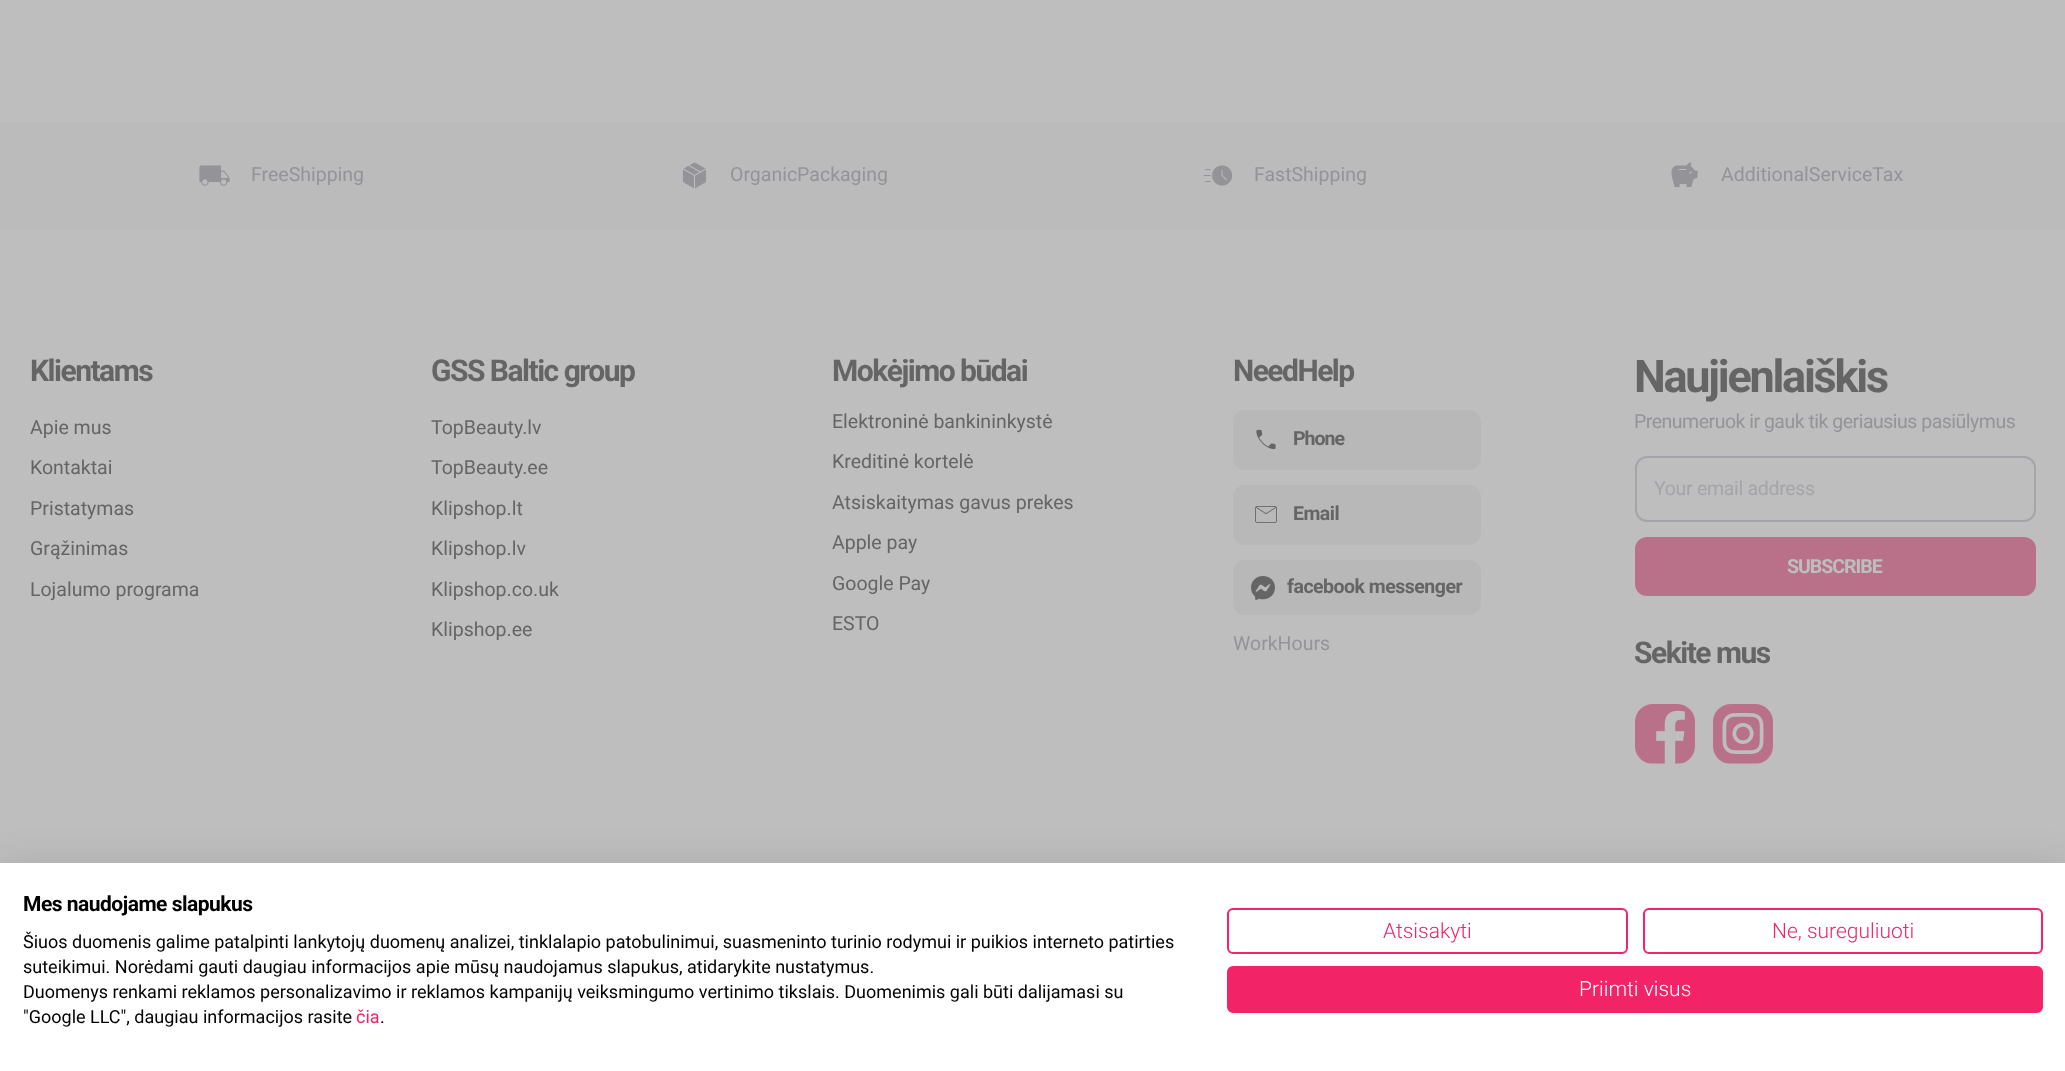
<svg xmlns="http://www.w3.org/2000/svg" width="2065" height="1071">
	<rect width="100%" height="100%" fill="#BEBEBE" />
	<rect x="0" y="122" width="2065" height="108" fill="#BBBBBC" />
	<image x="199" y="165" width="31" height="21" href="assets/img1.png" />
	<text x="251" y="181" font-family="Roboto" font-size="19.5" fill="#949398">FreeShipping</text>
	<image x="682" y="162" width="25" height="27" href="assets/img2.png" />
	<text x="730" y="181" font-family="Roboto" font-size="19.5" fill="#949398">OrganicPackaging</text>
	<image x="1203" y="165" width="30" height="21" href="assets/img3.png" />
	<text x="1254" y="181" font-family="Roboto" font-size="19.5" fill="#949398">FastShipping</text>
	<image x="1671" y="162" width="27" height="26" href="assets/img4.png" />
	<text x="1721" y="181" font-family="Roboto" font-size="19.5" fill="#949398">AdditionalServiceTax</text>
	<text x="30" y="381" font-family="Roboto" font-size="30" font-weight="700" letter-spacing="-1.5" fill="#656565">Klientams</text>
	<g font-family="Roboto" font-size="19.5" fill="#656565">
		<text x="30" y="434">Apie mus</text>
		<text x="30" y="474">Kontaktai</text>
		<text x="30" y="515">Pristatymas</text>
		<text x="30" y="555">Grąžinimas</text>
		<text x="30" y="596">Lojalumo programa</text>
	</g>
	<text x="431" y="381" font-family="Roboto" font-size="30" font-weight="700" letter-spacing="-1.5" fill="#656565">GSS Baltic group</text>
	<g font-family="Roboto" font-size="19.5" fill="#656565">
		<text x="431" y="434">TopBeauty.lv</text>
		<text x="431" y="474">TopBeauty.ee</text>
		<text x="431" y="515">Klipshop.lt</text>
		<text x="431" y="555">Klipshop.lv</text>
		<text x="431" y="596">Klipshop.co.uk</text>
		<text x="431" y="636">Klipshop.ee</text>
	</g>
	<text x="832" y="381" font-family="Roboto" font-size="30" font-weight="700" letter-spacing="-1.5" fill="#656565">Mokėjimo būdai</text>
	<g font-family="Roboto" font-size="19.5" fill="#656565">
		<text x="832" y="428">Elektroninė bankininkystė</text>
		<text x="832" y="468">Kreditinė kortelė</text>
		<text x="832" y="509">Atsiskaitymas gavus prekes</text>
		<text x="832" y="549">Apple pay</text>
		<text x="832" y="590">Google Pay</text>
		<text x="832" y="630">ESTO</text>
	</g>
	<text x="1233" y="381" font-family="Roboto" font-size="30" font-weight="700" letter-spacing="-1.5" fill="#656565">NeedHelp</text>
	<rect x="1233" y="410" width="248" height="60" rx="12" fill="#B8B8B9" />
	<image x="1256" y="429" width="20" height="21" href="assets/img5.png" />
	<text x="1293" y="445" font-family="Roboto" font-size="19.5" font-weight="700" letter-spacing="-1" fill="#656565">Phone</text>
	<rect x="1233" y="485" width="248" height="60" rx="12" fill="#B8B8B9" />
	<image x="1255" y="506" width="22" height="17" href="assets/img6.png" />
	<text x="1293" y="520" font-family="Roboto" font-size="19.5" font-weight="700" letter-spacing="-0.5" fill="#656565">Email</text>
	<rect x="1233" y="560" width="248" height="55" rx="12" fill="#B8B8B9" />
	<image x="1251" y="576" width="24" height="24" href="assets/img7.png" />
	<text x="1287" y="593" font-family="Roboto" font-size="19.5" font-weight="700" letter-spacing="-0.5" fill="#656565">facebook messenger</text>
	<text x="1233" y="650" font-family="Roboto" font-size="19.5" fill="#949398">WorkHours</text>
	<text x="1634" y="392" font-family="Roboto" font-size="45" font-weight="700" letter-spacing="-2.25" fill="#656565">Naujienlaiškis</text>
	<text x="1634" y="428" font-family="Roboto" font-size="19.5" letter-spacing="-0.5" fill="#949398">Prenumeruok ir gauk tik geriausius pasiūlymus</text>
	<rect x="1636" y="457" width="399" height="64" rx="11" fill="none" stroke="#A4A4AA" stroke-width="2" />
	<text x="1654" y="495" font-family="Roboto" font-size="19.5" letter-spacing="-0.3" fill="#A4A4AA">Your email address</text>
	<rect x="1635" y="537" width="401" height="59" rx="12" fill="#B97189" />
	<text x="1787" y="573" font-family="Roboto" font-size="19.5" font-weight="700" letter-spacing="-1" fill="#BEBEBE">SUBSCRIBE</text>
	<text x="1634" y="663" font-family="Roboto" font-size="30" font-weight="700" letter-spacing="-1.5" fill="#656565">Sekite mus</text>
	<image x="1635" y="704" width="60" height="60" href="assets/img8.png" />
	<image x="1713" y="704" width="60" height="60" href="assets/img9.png" />
	<rect x="0" y="863" width="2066" height="208" fill="#000000" fill-opacity="0.1" filter="blur(18px)" />
	<rect x="0" y="863" width="2065" height="208" fill="#FFFFFF" />
	<text x="23" y="911" font-family="Roboto" font-size="21" font-weight="700" letter-spacing="-0.5" fill="#000000">Mes naudojame slapukus</text>
	<g font-family="Roboto" font-size="18" fill="#000000">
		<text x="23" y="948">Šiuos duomenis galime patalpinti lankytojų duomenų analizei, tinklalapio patobulinimui, suasmeninto turinio rodymui ir puikios interneto patirties</text>
		<text x="23" y="973">suteikimui. Norėdami gauti daugiau informacijos apie mūsų naudojamus slapukus, atidarykite nustatymus.</text>
		<text x="23" y="998">Duomenys renkami reklamos personalizavimo ir reklamos kampanijų veiksmingumo vertinimo tikslais. Duomenimis gali būti dalijamasi su</text>
		<text x="23" y="1023">"Google LLC", daugiau informacijos rasite</text>
	</g>
	<text x="356" y="1023" font-family="Roboto" font-size="18" fill="#F22467">čia</text>
	<text x="380" y="1023" font-family="Roboto" font-size="18" fill="#000000">.</text>
	<rect x="1228" y="909" width="399" height="44" rx="5" fill="none" stroke="#F22467" stroke-width="2" />
	<text x="1383" y="938" font-family="Roboto" font-size="21" font-weight="300" fill="#F22467">Atsisakyti</text>
	<rect x="1644" y="909" width="398" height="44" rx="5" fill="none" stroke="#F22467" stroke-width="2" />
	<text x="1772" y="938" font-family="Roboto" font-size="21" font-weight="300" fill="#F22467">Ne, sureguliuoti</text>
	<rect x="1228" y="967" width="814" height="45" rx="5" fill="#F22467" stroke="#F22467" stroke-width="2" />
	<text x="1579" y="996" font-family="Roboto" font-size="21" font-weight="300" fill="#FFFFFF">Priimti visus</text>
</svg>
